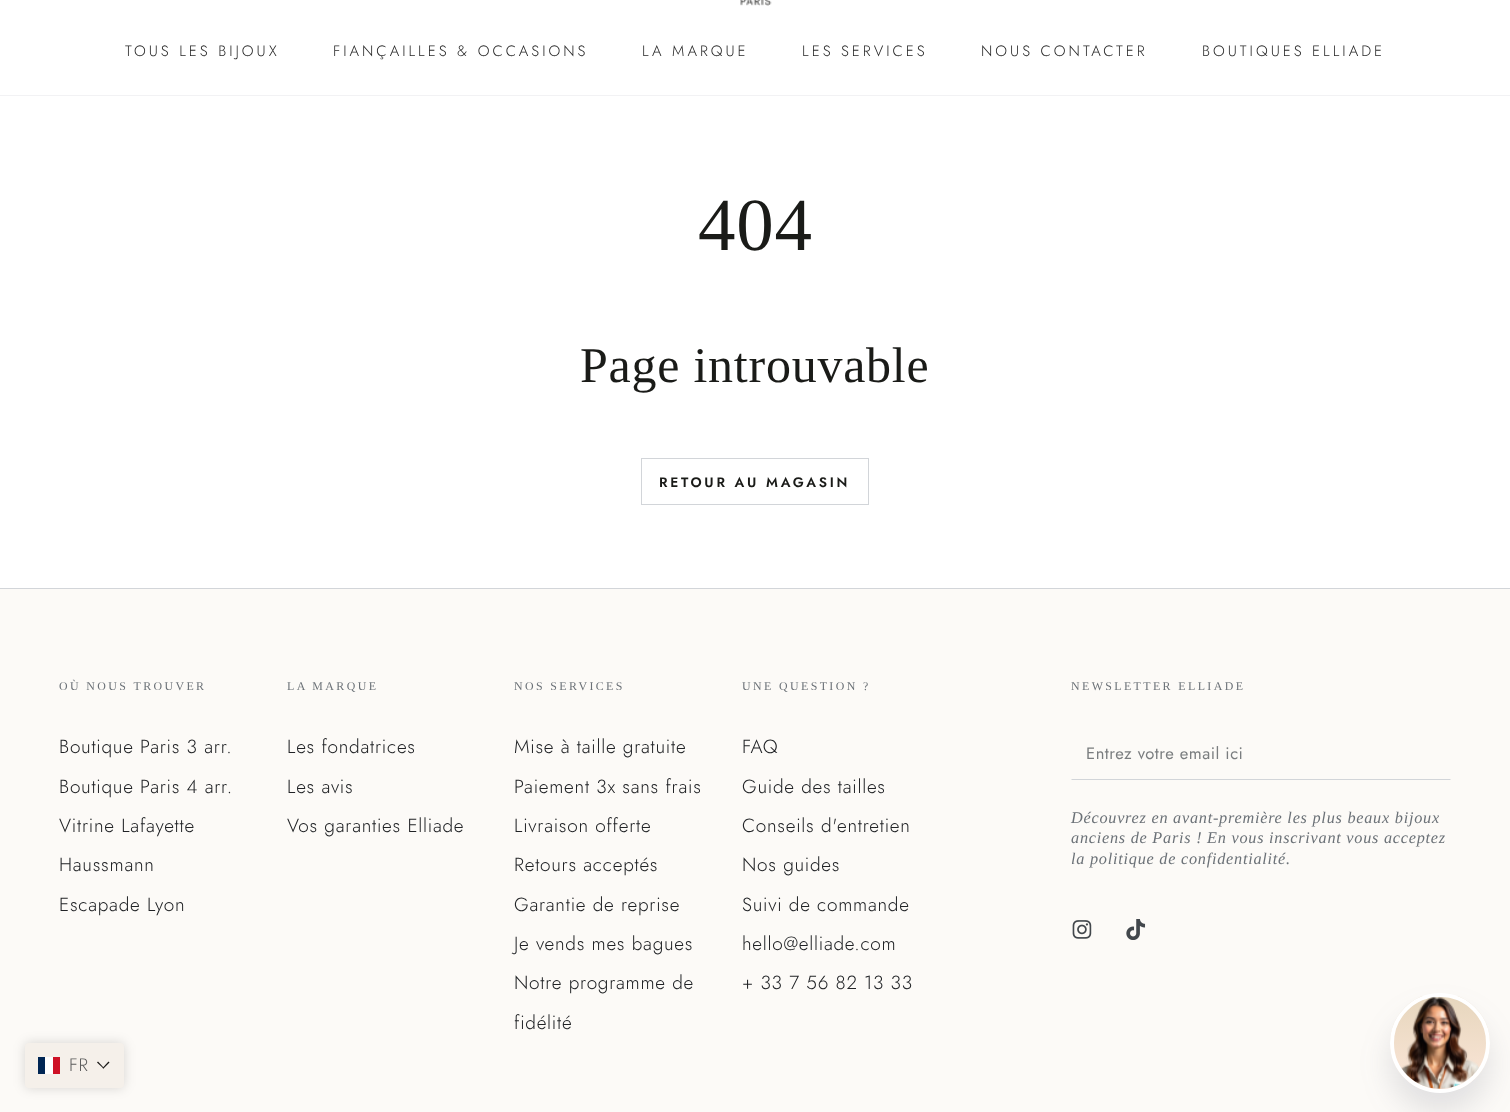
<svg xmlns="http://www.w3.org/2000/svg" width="1510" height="1112">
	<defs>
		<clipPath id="clip1"><rect x="1390" y="993" width="100" height="100" rx="50" /></clipPath>
		<linearGradient id="g1" gradientUnits="userSpaceOnUse" x1="1440" y1="996" x2="1440" y2="1089"><stop offset="0" stop-color="#E6D6BD" /><stop offset="1" stop-color="#FCE6D8" /></linearGradient>
	</defs>
	<rect width="100%" height="100%" fill="#FFFFFF" />
	<rect x="0" y="95" width="1510" height="1" fill="#F2F2F4" />
	<image x="740" y="0" width="32" height="6" href="assets/img1.png" />
	<g font-family="Jost" font-size="15" font-weight="300" letter-spacing="3" fill="#282828">
		<text x="125" y="56">TOUS LES BIJOUX</text>
		<text x="333" y="56">FIANÇAILLES &amp; OCCASIONS</text>
		<text x="642" y="56">LA MARQUE</text>
		<text x="802" y="56">LES SERVICES</text>
		<text x="981" y="56">NOUS CONTACTER</text>
		<text x="1202" y="56">BOUTIQUES ELLIADE</text>
	</g>
	<text x="698" y="250" font-family="Liberation Serif" font-size="75" letter-spacing="0.75" fill="#1A1B18">404</text>
	<text x="580" y="382" font-family="Liberation Serif" font-size="50" letter-spacing="0.75" fill="#1A1B18">Page introuvable</text>
	<rect x="641.5" y="458.5" width="227" height="46" fill="none" stroke="#D2D5D9" />
	<text x="659" y="487" font-family="Jost" font-size="13.75" font-weight="600" letter-spacing="2.75" fill="#1A1B18">RETOUR AU MAGASIN</text>
	<rect x="0" y="589" width="1510" height="523" fill="#FCFAF7" />
	<rect x="0" y="588" width="1510" height="1" fill="#D2D5D9" />
	<text x="59" y="690" font-family="Liberation Serif" font-size="11.9" letter-spacing="2.4" fill="#6B7177">OÙ NOUS TROUVER</text>
	<g font-family="Jost" font-size="19" font-weight="300" letter-spacing="0.75" fill="#212326">
		<text x="59" y="753">Boutique Paris 3 arr.</text>
		<text x="59" y="793">Boutique Paris 4 arr.</text>
		<text x="59" y="832">Vitrine Lafayette</text>
		<text x="59" y="871">Haussmann</text>
		<text x="59" y="911">Escapade Lyon</text>
	</g>
	<text x="287" y="690" font-family="Liberation Serif" font-size="11.9" letter-spacing="2.4" fill="#6B7177">LA MARQUE</text>
	<g font-family="Jost" font-size="19" font-weight="300" letter-spacing="0.75" fill="#212326">
		<text x="287" y="753">Les fondatrices</text>
		<text x="287" y="793">Les avis</text>
		<text x="287" y="832">Vos garanties Elliade</text>
	</g>
	<text x="514" y="690" font-family="Liberation Serif" font-size="11.9" letter-spacing="2.4" fill="#6B7177">NOS SERVICES</text>
	<g font-family="Jost" font-size="19" font-weight="300" letter-spacing="0.75" fill="#212326">
		<text x="514" y="753">Mise à taille gratuite</text>
		<text x="514" y="793">Paiement 3x sans frais</text>
		<text x="514" y="832">Livraison offerte</text>
		<text x="514" y="871">Retours acceptés</text>
		<text x="514" y="911">Garantie de reprise</text>
		<text x="514" y="950">Je vends mes bagues</text>
		<text x="514" y="989">Notre programme de</text>
		<text x="514" y="1029">fidélité</text>
	</g>
	<text x="742" y="690" font-family="Liberation Serif" font-size="11.9" letter-spacing="2.4" fill="#6B7177">UNE QUESTION ?</text>
	<g font-family="Jost" font-size="19" font-weight="300" letter-spacing="0.75" fill="#212326">
		<text x="742" y="753">FAQ</text>
		<text x="742" y="793">Guide des tailles</text>
		<text x="742" y="832">Conseils d'entretien</text>
		<text x="742" y="871">Nos guides</text>
		<text x="742" y="911">Suivi de commande</text>
		<text x="742" y="950">hello@elliade.com</text>
		<text x="742" y="989">+ 33 7 56 82 13 33</text>
	</g>
	<text x="1071" y="690" font-family="Liberation Serif" font-size="11.9" letter-spacing="2.4" fill="#6B7177">NEWSLETTER ELLIADE</text>
	<path d="M1451 780H1071L1072 779H1450Z" fill="#D2D5D9" />
	<text x="1086" y="759" font-family="Jost" font-size="16.6" letter-spacing="0.5" fill="#7A7D7F">Entrez votre email ici</text>
	<g font-family="Liberation Serif" font-size="16.25" font-style="italic" letter-spacing="0.75" fill="#6B7177">
		<text x="1071" y="823">Découvrez en avant-première les plus beaux bijoux</text>
		<text x="1071" y="843">anciens de Paris ! En vous inscrivant vous acceptez</text>
		<text x="1071" y="864">la politique de confidentialité.</text>
	</g>
	<image x="1072" y="920" width="20" height="19" href="assets/img2.png" />
	<image x="1126" y="919" width="20" height="21" href="assets/img3.png" />
	<rect x="25" y="1043" width="99" height="45" rx="4" fill="#000000" fill-opacity="0.15" filter="blur(6px)" />
	<rect x="25" y="1043" width="99" height="45" rx="4" fill="#F5F0EA" />
	<rect x="45" y="1057" width="8" height="17" fill="#FFFFFF" />
	<rect x="38" y="1057" width="7" height="17" fill="#002654" />
	<rect x="53" y="1057" width="7" height="17" fill="#CE1126" />
	<text x="69" y="1071" font-family="Jost" font-size="18" font-weight="300" letter-spacing="0.75" fill="#5C5C5C">FR</text>
	<path d="M108.5 1061.5L109.5 1062.5L103.5 1068.5L102.5 1068Z" fill="#191817" />
	<path d="M98 1061.5L104 1068L103.5 1068.5L97 1062.5Z" fill="#191817" />
	<rect x="1390" y="1013" width="100" height="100" rx="50" fill="#545F6F" fill-opacity="0.16" filter="blur(15px)" />
	<g clip-path="url(#clip1)">
		<rect x="1390" y="996" width="100" height="93" fill="url(#g1)" />
	</g>
	<circle cx="1440" cy="1043" r="48" fill="none" stroke="#FFFFFF" stroke-width="4" />
	<image x="1401" y="996" width="78" height="93" href="assets/img4.png" />
</svg>
